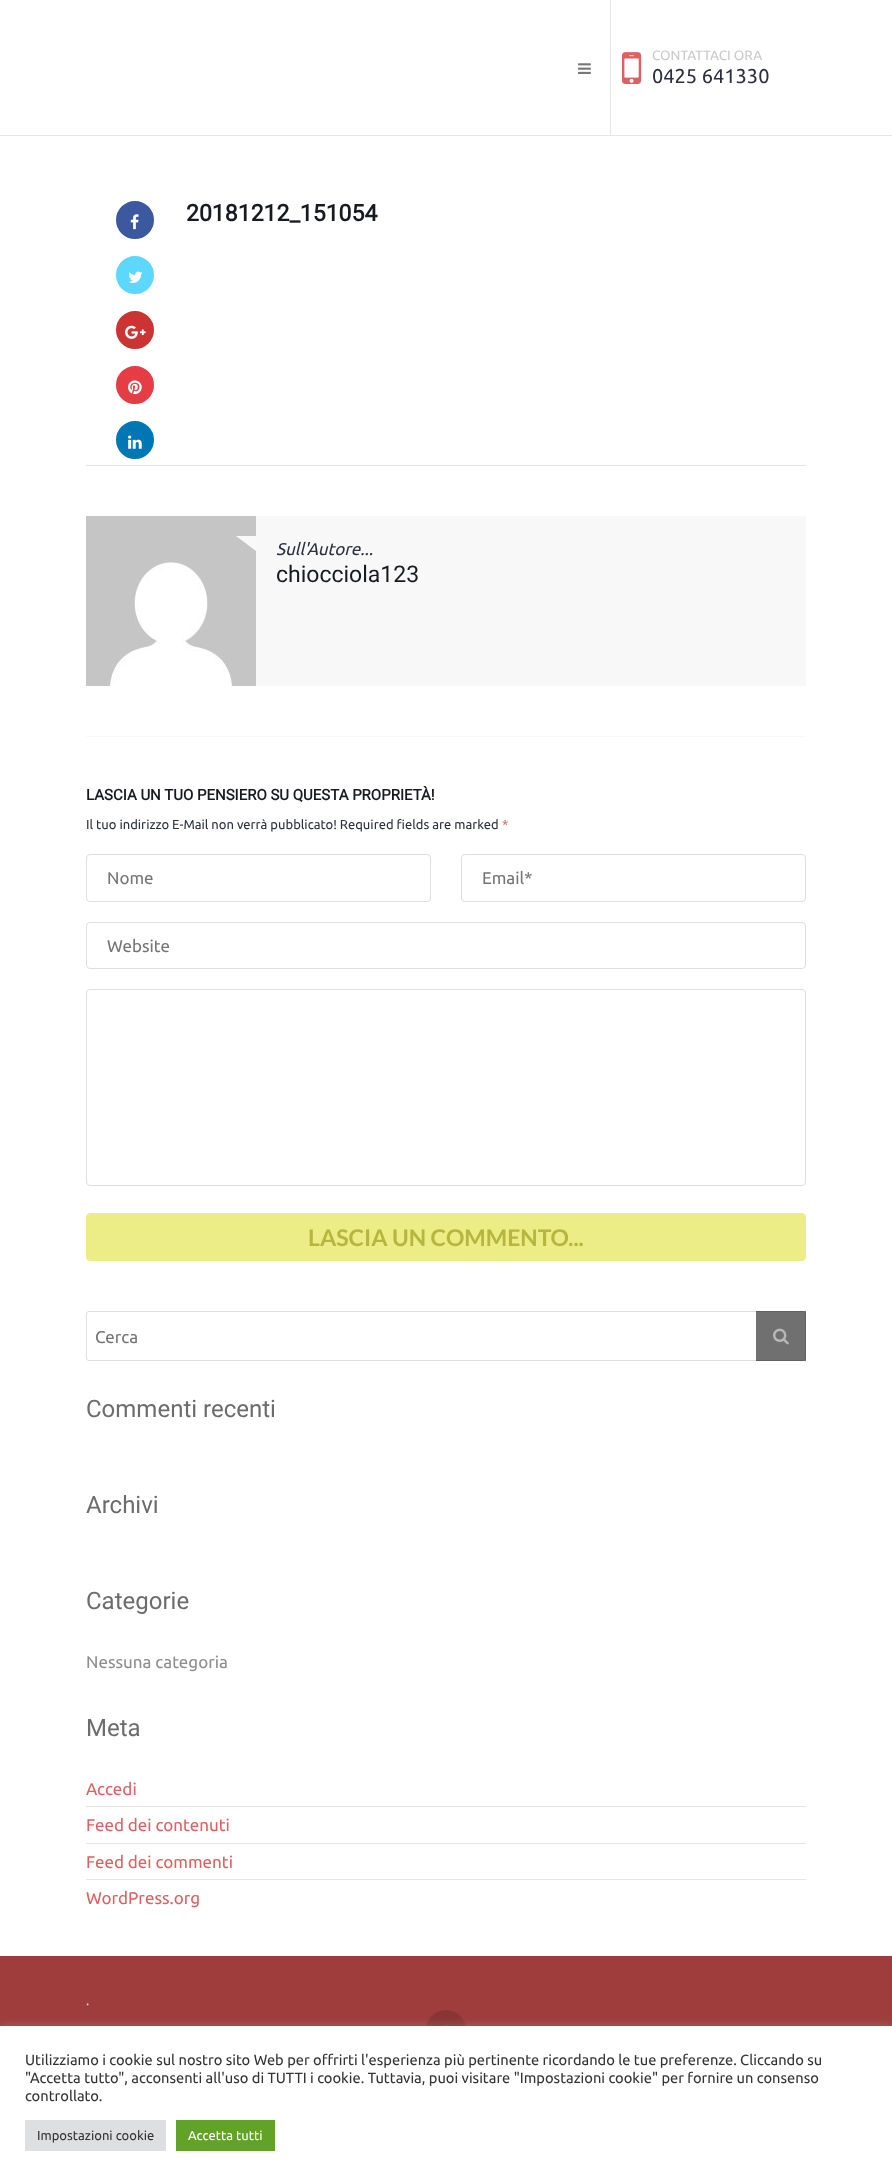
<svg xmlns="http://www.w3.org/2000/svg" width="892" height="2181">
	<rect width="100%" height="100%" fill="#FFFFFF" />
	<rect x="0" y="135" width="892" height="1" fill="#E5E5E5" />
	<image x="578" y="63" width="13" height="11" href="assets/img1.png" />
	<rect x="610" y="0" width="1" height="136" fill="#E5E5E5" />
	<image x="622" y="52" width="20" height="32" href="assets/img2.png" />
	<text x="652" y="60" font-family="Ubuntu" font-size="13.5" fill="#C9C9C9">CONTATTACI ORA</text>
	<text x="652" y="83" font-family="Ubuntu" font-size="20" fill="#2D313F">0425 641330</text>
	<rect x="86" y="736" width="720" height="1" fill="#F8F8F8" />
	<rect x="86" y="465" width="720" height="1" fill="#E5E5E5" />
	<circle cx="135" cy="220" r="18" fill="#3C599F" stroke="#3C599F" stroke-width="2" />
	<image x="130" y="214" width="9" height="16" href="assets/img3.png" />
	<circle cx="135" cy="275" r="18" fill="#5DD7FC" stroke="#5DD7FC" stroke-width="2" />
	<image x="128" y="271" width="15" height="12" href="assets/img4.png" />
	<circle cx="135" cy="330" r="18" fill="#CC3433" stroke="#CC3433" stroke-width="2" />
	<image x="125" y="325" width="21" height="14" href="assets/img5.png" />
	<circle cx="135" cy="385" r="18" fill="#E63D44" stroke="#E63D44" stroke-width="2" />
	<image x="128" y="380" width="14" height="15" href="assets/img6.png" />
	<circle cx="135" cy="440" r="18" fill="#0077B5" stroke="#0077B5" stroke-width="2" />
	<image x="128" y="435" width="14" height="14" href="assets/img7.png" />
	<text x="186" y="221" font-family="Roboto" font-size="23" font-weight="700" fill="#181A21">20181212_151054</text>
	<rect x="256" y="516" width="550" height="170" fill="#F8F8F8" />
	<image x="86" y="516" width="170" height="170" href="assets/img8.png" />
	<path d="M256 536V551L236 536Z" fill="#F9F9F9" />
	<text x="276" y="555" font-family="Ubuntu" font-size="17" font-style="italic" fill="#2D313F">Sull'Autore...</text>
	<text x="276" y="582" font-family="Roboto" font-size="23" fill="#181A21">chiocciola123</text>
	<text x="86" y="800" font-family="Roboto" font-size="15" font-weight="700" fill="#181A21">LASCIA UN TUO PENSIERO SU QUESTA PROPRIETÀ!</text>
	<text x="86" y="829" font-family="Ubuntu" font-size="13" fill="#2D313F">Il tuo indirizzo E-Mail non verrà pubblicato! Required fields are marked</text>
	<text x="502" y="829" font-family="Ubuntu" font-size="13" fill="#DD6161">*</text>
	<rect x="86.5" y="854.5" width="344" height="47" rx="3.5" fill="none" stroke="#DEDEDE" />
	<text x="107" y="884" font-family="Ubuntu" font-size="17" fill="#757575">Nome</text>
	<rect x="461.5" y="854.5" width="344" height="47" rx="3.5" fill="none" stroke="#DEDEDE" />
	<text x="482" y="884" font-family="Ubuntu" font-size="17" fill="#757575">Email*</text>
	<rect x="86.5" y="922.5" width="719" height="46" rx="3.5" fill="none" stroke="#DEDEDE" />
	<text x="107" y="952" font-family="Ubuntu" font-size="17" fill="#757575">Website</text>
	<rect x="86.5" y="989.5" width="719" height="196" rx="3.5" fill="none" stroke="#DEDEDE" />
	<rect x="86.5" y="1213.5" width="719" height="47" rx="3.5" fill="#EDED87" stroke="#EDED87" />
	<text x="308" y="1246" font-family="Lato" font-size="23" font-weight="700" fill="#B6B63F">LASCIA UN COMMENTO...</text>
	<rect x="86.5" y="1311.5" width="719" height="49" rx="2.5" fill="none" stroke="#DEDEDE" />
	<text x="95" y="1343" font-family="Ubuntu" font-size="17" fill="#757575">Cerca</text>
	<rect x="756" y="1311" width="50" height="50" fill="#000000" fill-opacity="0.56" />
	<image x="773" y="1328" width="16" height="17" href="assets/img9.png" />
	<g font-family="Roboto" font-size="24" fill="#6C6C6C">
		<text x="86" y="1417">Commenti recenti</text>
		<text x="86" y="1513">Archivi</text>
		<text x="86" y="1609">Categorie</text>
	</g>
	<text x="86" y="1668" font-family="Ubuntu" font-size="17" fill="#8E8E8E">Nessuna categoria</text>
	<text x="86" y="1736" font-family="Roboto" font-size="24" fill="#6C6C6C">Meta</text>
	<rect x="86" y="1806" width="720" height="1" fill="#E5E5E5" />
	<text x="86" y="1795" font-family="Ubuntu" font-size="17" fill="#DD6161">Accedi</text>
	<rect x="86" y="1843" width="720" height="1" fill="#E5E5E5" />
	<text x="86" y="1831" font-family="Ubuntu" font-size="17" fill="#DD6161">Feed dei contenuti</text>
	<rect x="86" y="1879" width="720" height="1" fill="#E5E5E5" />
	<g font-family="Ubuntu" font-size="17" fill="#DD6161">
		<text x="86" y="1868">Feed dei commenti</text>
		<text x="86" y="1904">WordPress.org</text>
	</g>
	<rect x="0" y="1956" width="892" height="70" fill="#9E3D3C" />
	<text x="86" y="2005" font-family="Ubuntu" font-size="13" fill="#E1E1E1">.</text>
	<circle cx="446" cy="2030" r="20" fill="#000000" fill-opacity="0.12" />
	<image x="445" y="2025" width="2" height="1" href="assets/img10.png" />
	<rect x="0" y="2025" width="892" height="155" fill="#ACABAB" fill-opacity="0.3" filter="blur(5px)" />
	<rect x="0" y="2026" width="892" height="155" fill="#FFFFFF" />
	<g font-family="Ubuntu" font-size="14.67" fill="#333333">
		<text x="25" y="2065">Utilizziamo i cookie sul nostro sito Web per offrirti l'esperienza più pertinente ricordando le tue preferenze. Cliccando su</text>
		<text x="25" y="2083">"Accetta tutto", acconsenti all'uso di TUTTI i cookie. Tuttavia, puoi visitare "Impostazioni cookie" per fornire un consenso</text>
		<text x="25" y="2101">controllato.</text>
	</g>
	<rect x="25" y="2120" width="141" height="31" fill="#DEDFE0" />
	<text x="37" y="2140" font-family="Ubuntu" font-size="13" fill="#333333">Impostazioni cookie</text>
	<rect x="176" y="2120" width="99" height="31" fill="#61A229" />
	<text x="188" y="2140" font-family="Ubuntu" font-size="13" fill="#FFFFFF">Accetta tutti</text>
</svg>
